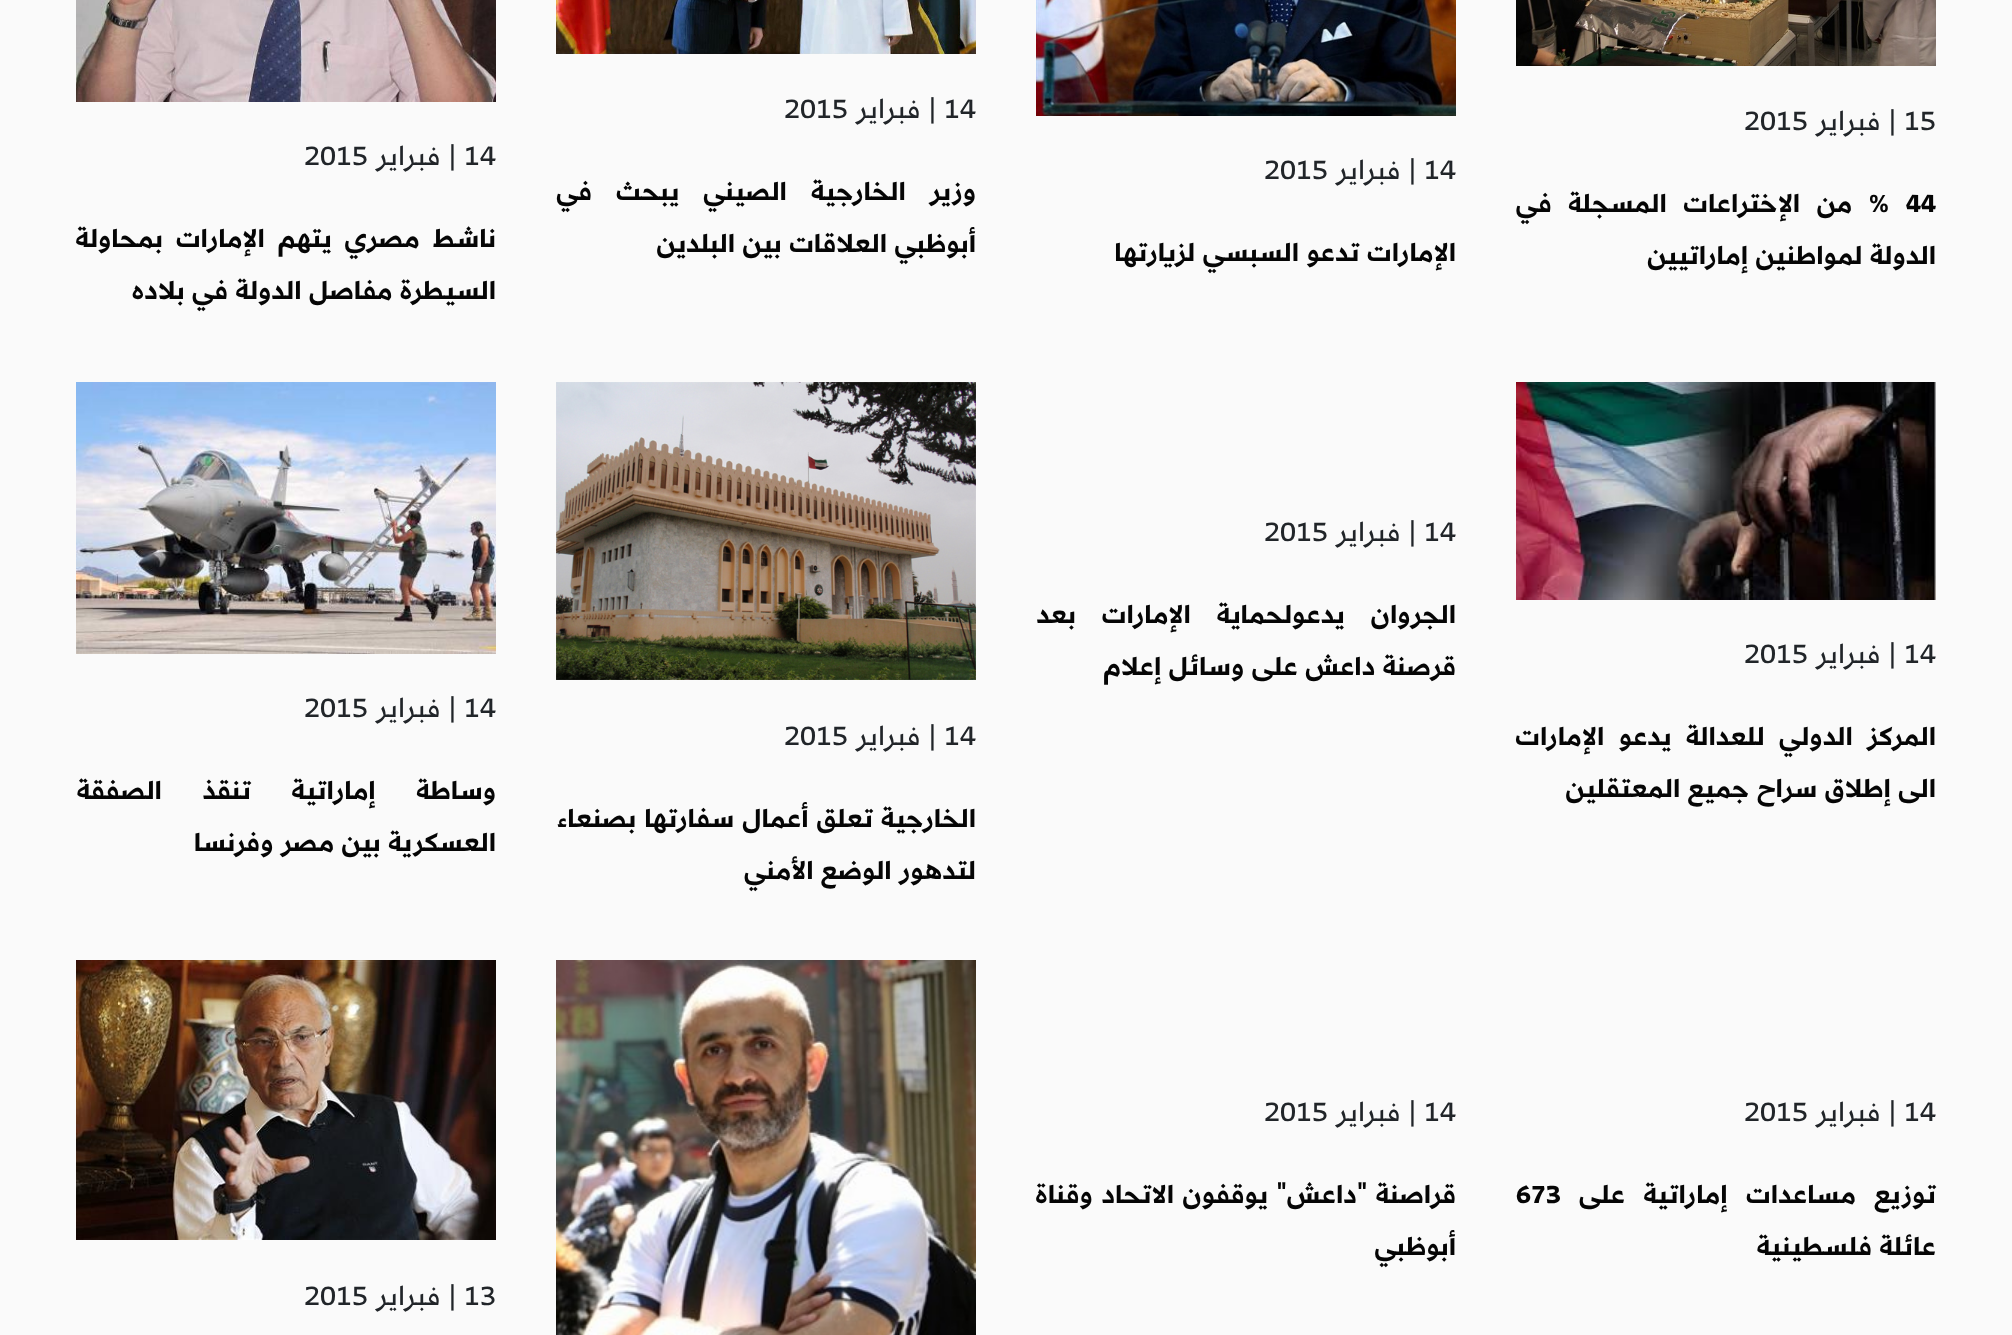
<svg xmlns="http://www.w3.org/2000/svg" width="2012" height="1335">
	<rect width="100%" height="100%" fill="#FAFAFA" />
	<image x="1516" y="0" width="420" height="66" href="assets/img1.png" />
	<text x="1904" y="130" font-family="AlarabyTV" font-size="32" fill="#212529">15</text>
	<text x="1896" y="130" font-family="AlarabyTV" font-size="32" direction="rtl" fill="#212529">| فبراير</text>
	<text x="1744" y="130" font-family="AlarabyTV" font-size="32" fill="#212529">2015</text>
	<text x="1906" y="212" font-family="AlarabyTV" font-size="30" font-weight="700" fill="#050505">44</text>
	<g font-family="AlarabyTV" font-size="30" font-weight="700" direction="rtl" fill="#050505">
		<text x="1889" y="212" word-spacing="9">% من الإختراعات المسجلة في</text>
		<text x="1936" y="264">الدولة لمواطنين إماراتيين</text>
	</g>
	<image x="1036" y="0" width="420" height="116" href="assets/img2.png" />
	<text x="1424" y="179" font-family="AlarabyTV" font-size="32" fill="#212529">14</text>
	<text x="1416" y="179" font-family="AlarabyTV" font-size="32" direction="rtl" fill="#212529">| فبراير</text>
	<text x="1264" y="179" font-family="AlarabyTV" font-size="32" fill="#212529">2015</text>
	<text x="1456" y="261" font-family="AlarabyTV" font-size="30" font-weight="700" direction="rtl" fill="#050505">الإمارات تدعو السبسي لزيارتها</text>
	<image x="556" y="0" width="420" height="54" href="assets/img3.png" />
	<text x="944" y="118" font-family="AlarabyTV" font-size="32" fill="#212529">14</text>
	<text x="936" y="118" font-family="AlarabyTV" font-size="32" direction="rtl" fill="#212529">| فبراير</text>
	<text x="784" y="118" font-family="AlarabyTV" font-size="32" fill="#212529">2015</text>
	<g font-family="AlarabyTV" font-size="30" font-weight="700" direction="rtl" fill="#050505">
		<text x="976" y="200" word-spacing="16.5">وزير الخارجية الصيني يبحث في</text>
		<text x="976" y="252">أبوظبي العلاقات بين البلدين</text>
	</g>
	<image x="76" y="0" width="420" height="102" href="assets/img4.png" />
	<text x="464" y="165" font-family="AlarabyTV" font-size="32" fill="#212529">14</text>
	<text x="456" y="165" font-family="AlarabyTV" font-size="32" direction="rtl" fill="#212529">| فبراير</text>
	<text x="304" y="165" font-family="AlarabyTV" font-size="32" fill="#212529">2015</text>
	<g font-family="AlarabyTV" font-size="30" font-weight="700" direction="rtl" fill="#050505">
		<text x="496" y="247" word-spacing="5.5">ناشط مصري يتهم الإمارات بمحاولة</text>
		<text x="496" y="299">السيطرة مفاصل الدولة في بلاده</text>
	</g>
	<text x="1424" y="541" font-family="AlarabyTV" font-size="32" fill="#212529">14</text>
	<text x="1416" y="541" font-family="AlarabyTV" font-size="32" direction="rtl" fill="#212529">| فبراير</text>
	<text x="1264" y="541" font-family="AlarabyTV" font-size="32" fill="#212529">2015</text>
	<g font-family="AlarabyTV" font-size="30" font-weight="700" direction="rtl" fill="#050505">
		<text x="1456" y="623" word-spacing="18.5">الجروان يدعولحماية الإمارات بعد</text>
		<text x="1456" y="675">قرصنة داعش على وسائل إعلام</text>
	</g>
	<image x="1516" y="382" width="420" height="218" href="assets/img5.png" />
	<text x="1904" y="663" font-family="AlarabyTV" font-size="32" fill="#212529">14</text>
	<text x="1896" y="663" font-family="AlarabyTV" font-size="32" direction="rtl" fill="#212529">| فبراير</text>
	<text x="1744" y="663" font-family="AlarabyTV" font-size="32" fill="#212529">2015</text>
	<g font-family="AlarabyTV" font-size="30" font-weight="700" direction="rtl" fill="#050505">
		<text x="1936" y="745" word-spacing="7">المركز الدولي للعدالة يدعو الإمارات</text>
		<text x="1936" y="797">الى إطلاق سراح جميع المعتقلين</text>
	</g>
	<image x="556" y="382" width="420" height="298" href="assets/img6.png" />
	<text x="944" y="745" font-family="AlarabyTV" font-size="32" fill="#212529">14</text>
	<text x="936" y="745" font-family="AlarabyTV" font-size="32" direction="rtl" fill="#212529">| فبراير</text>
	<text x="784" y="745" font-family="AlarabyTV" font-size="32" fill="#212529">2015</text>
	<g font-family="AlarabyTV" font-size="30" font-weight="700" direction="rtl" fill="#050505">
		<text x="976" y="827" word-spacing="0.5">الخارجية تعلق أعمال سفارتها بصنعاء</text>
		<text x="976" y="879">لتدهور الوضع الأمني</text>
	</g>
	<image x="76" y="382" width="420" height="272" href="assets/img7.png" />
	<text x="464" y="717" font-family="AlarabyTV" font-size="32" fill="#212529">14</text>
	<text x="456" y="717" font-family="AlarabyTV" font-size="32" direction="rtl" fill="#212529">| فبراير</text>
	<text x="304" y="717" font-family="AlarabyTV" font-size="32" fill="#212529">2015</text>
	<g font-family="AlarabyTV" font-size="30" font-weight="700" direction="rtl" fill="#050505">
		<text x="496" y="799" word-spacing="33">وساطة إماراتية تنقذ الصفقة</text>
		<text x="496" y="851">العسكرية بين مصر وفرنسا</text>
	</g>
	<text x="1904" y="1121" font-family="AlarabyTV" font-size="32" fill="#212529">14</text>
	<text x="1896" y="1121" font-family="AlarabyTV" font-size="32" direction="rtl" fill="#212529">| فبراير</text>
	<text x="1744" y="1121" font-family="AlarabyTV" font-size="32" fill="#212529">2015</text>
	<text x="1936" y="1203" word-spacing="11" font-family="AlarabyTV" font-size="30" font-weight="700" direction="rtl" fill="#050505">توزيع مساعدات إماراتية على</text>
	<text x="1516" y="1203" font-family="AlarabyTV" font-size="30" font-weight="700" fill="#050505">673</text>
	<text x="1936" y="1255" font-family="AlarabyTV" font-size="30" font-weight="700" direction="rtl" fill="#050505">عائلة فلسطينية</text>
	<text x="1424" y="1121" font-family="AlarabyTV" font-size="32" fill="#212529">14</text>
	<text x="1416" y="1121" font-family="AlarabyTV" font-size="32" direction="rtl" fill="#212529">| فبراير</text>
	<text x="1264" y="1121" font-family="AlarabyTV" font-size="32" fill="#212529">2015</text>
	<g font-family="AlarabyTV" font-size="30" font-weight="700" direction="rtl" fill="#050505">
		<text x="1456" y="1203" word-spacing="1">قراصنة "داعش" يوقفون الاتحاد وقناة</text>
		<text x="1456" y="1255">أبوظبي</text>
	</g>
	<image x="556" y="960" width="420" height="375" href="assets/img8.png" />
	<image x="76" y="960" width="420" height="280" href="assets/img9.png" />
	<text x="464" y="1305" font-family="AlarabyTV" font-size="32" fill="#212529">13</text>
	<text x="456" y="1305" font-family="AlarabyTV" font-size="32" direction="rtl" fill="#212529">| فبراير</text>
	<text x="304" y="1305" font-family="AlarabyTV" font-size="32" fill="#212529">2015</text>
</svg>
